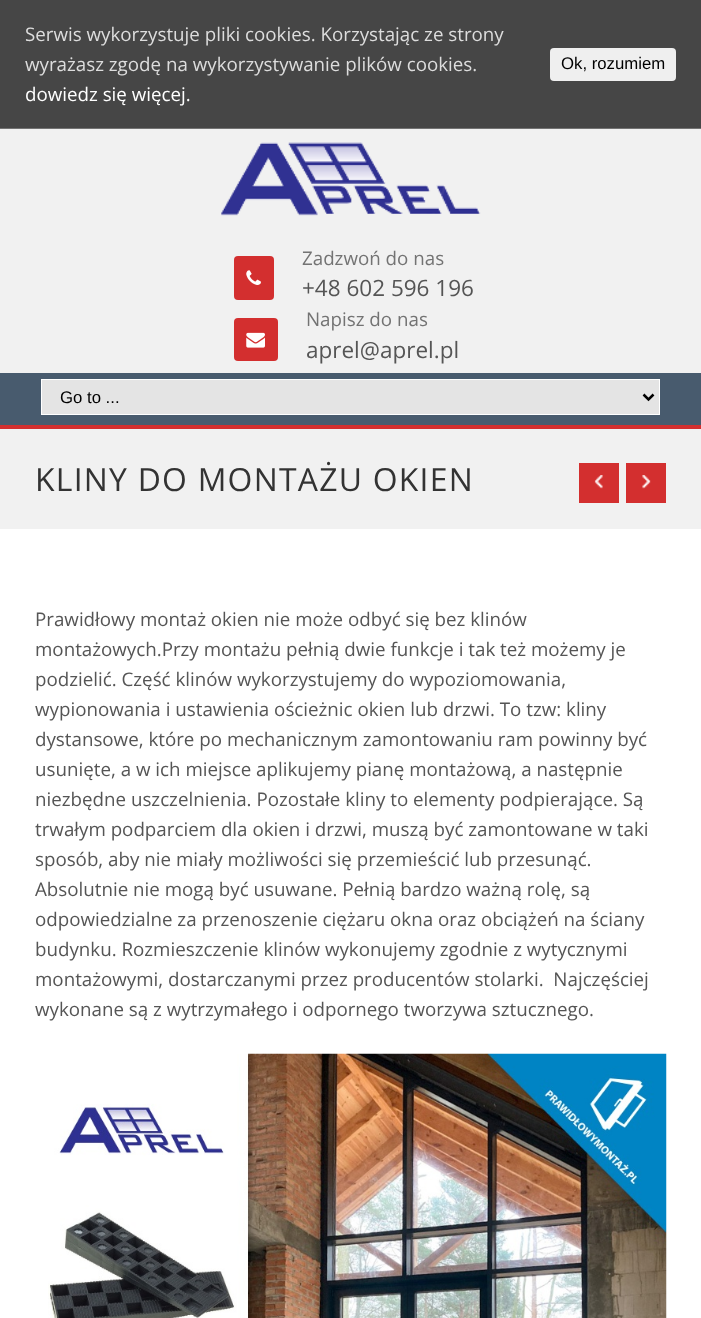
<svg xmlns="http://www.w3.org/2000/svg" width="701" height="1318">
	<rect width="100%" height="100%" fill="#F1F1F1" />
	<rect x="0" y="0" width="701" height="128" fill="#464646" />
	<g font-family="Open Sans" font-size="18.75" fill="#DDDDDD">
		<text x="25" y="41">Serwis wykorzystuje pliki cookies. Korzystając ze strony</text>
		<text x="25" y="71">wyrażasz zgodę na wykorzystywanie plików cookies.</text>
	</g>
	<text x="25" y="101" font-family="Open Sans" font-size="18.75" fill="#FFFFFF">dowiedz się więcej.</text>
	<rect x="550" y="48" width="126" height="33" rx="4" fill="#EFEFEF" />
	<text x="561" y="69" font-family="Liberation Sans" font-size="16.75" fill="#000000">Ok, rozumiem</text>
	<rect x="0" y="128" width="701" height="1" fill="#737373" />
	<image x="221" y="142" width="260" height="74" href="assets/img1.png" />
	<rect x="234" y="256" width="40" height="44" rx="4" fill="#D32F2F" />
	<image x="246" y="270" width="15" height="15" href="assets/img2.png" />
	<text x="302" y="265" font-family="Open Sans" font-size="18.75" fill="#737373">Zadzwoń do nas</text>
	<text x="302" y="296" font-family="Open Sans" font-size="22.5" fill="#555555">+48 602 596 196</text>
	<rect x="234" y="318" width="44" height="43" rx="4" fill="#D32F2F" />
	<image x="246" y="332" width="19" height="16" href="assets/img3.png" />
	<text x="306" y="326" font-family="Open Sans" font-size="18.75" fill="#737373">Napisz do nas</text>
	<text x="306" y="358" font-family="Open Sans" font-size="22.5" fill="#555555">aprel@aprel.pl</text>
	<rect x="0" y="373" width="701" height="52" fill="#485B6E" />
	<rect x="0" y="425" width="701" height="4" fill="#D32F2F" />
	<rect x="41.5" y="379.5" width="618" height="35" fill="#E4E4E4" stroke="#FFFFFF" />
	<path d="M643.5 394.5L648.5 399.5L653.5 394.5" fill="none" stroke="#000000" stroke-width="2.5" />
	<text x="60" y="403" font-family="Liberation Sans" font-size="16.75" fill="#000000">Go to ...</text>
	<text x="35" y="491" font-family="Open Sans" font-size="31.9" letter-spacing="1.25" fill="#333333">KLINY DO MONTAŻU OKIEN</text>
	<rect x="579" y="463" width="40" height="40" fill="#D32F2F" />
	<image x="594" y="475" width="9" height="14" href="assets/img4.png" />
	<rect x="626" y="463" width="40" height="40" fill="#D32F2F" />
	<image x="642" y="475" width="9" height="14" href="assets/img5.png" />
	<rect x="0" y="529" width="701" height="789" fill="#FFFFFF" />
	<g font-family="Open Sans" font-size="18.75" fill="#555555">
		<text x="35" y="626">Prawidłowy montaż okien nie może odbyć się bez klinów</text>
		<text x="35" y="656">montażowych.Przy montażu pełnią dwie funkcje i tak też możemy je</text>
		<text x="35" y="686">podzielić. Część klinów wykorzystujemy do wypoziomowania,</text>
		<text x="35" y="716">wypionowania i ustawienia ościeżnic okien lub drzwi. To tzw: kliny</text>
		<text x="35" y="746">dystansowe, które po mechanicznym zamontowaniu ram powinny być</text>
		<text x="35" y="776">usunięte, a w ich miejsce aplikujemy pianę montażową, a następnie</text>
		<text x="35" y="806">niezbędne uszczelnienia. Pozostałe kliny to elementy podpierające. Są</text>
		<text x="35" y="836">trwałym podparciem dla okien i drzwi, muszą być zamontowane w taki</text>
		<text x="35" y="866">sposób, aby nie miały możliwości się przemieścić lub przesunąć.</text>
		<text x="35" y="896">Absolutnie nie mogą być usuwane. Pełnią bardzo ważną rolę, są</text>
		<text x="35" y="926">odpowiedzialne za przenoszenie ciężaru okna oraz obciążeń na ściany</text>
		<text x="35" y="956">budynku. Rozmieszczenie klinów wykonujemy zgodnie z wytycznymi</text>
		<text x="35" y="986" xml:space="preserve">montażowymi, dostarczanymi przez producentów stolarki.  Najczęściej</text>
		<text x="35" y="1016">wykonane są z wytrzymałego i odpornego tworzywa sztucznego.</text>
	</g>
	<image x="48" y="1053" width="619" height="265" href="assets/img6.png" />
</svg>
